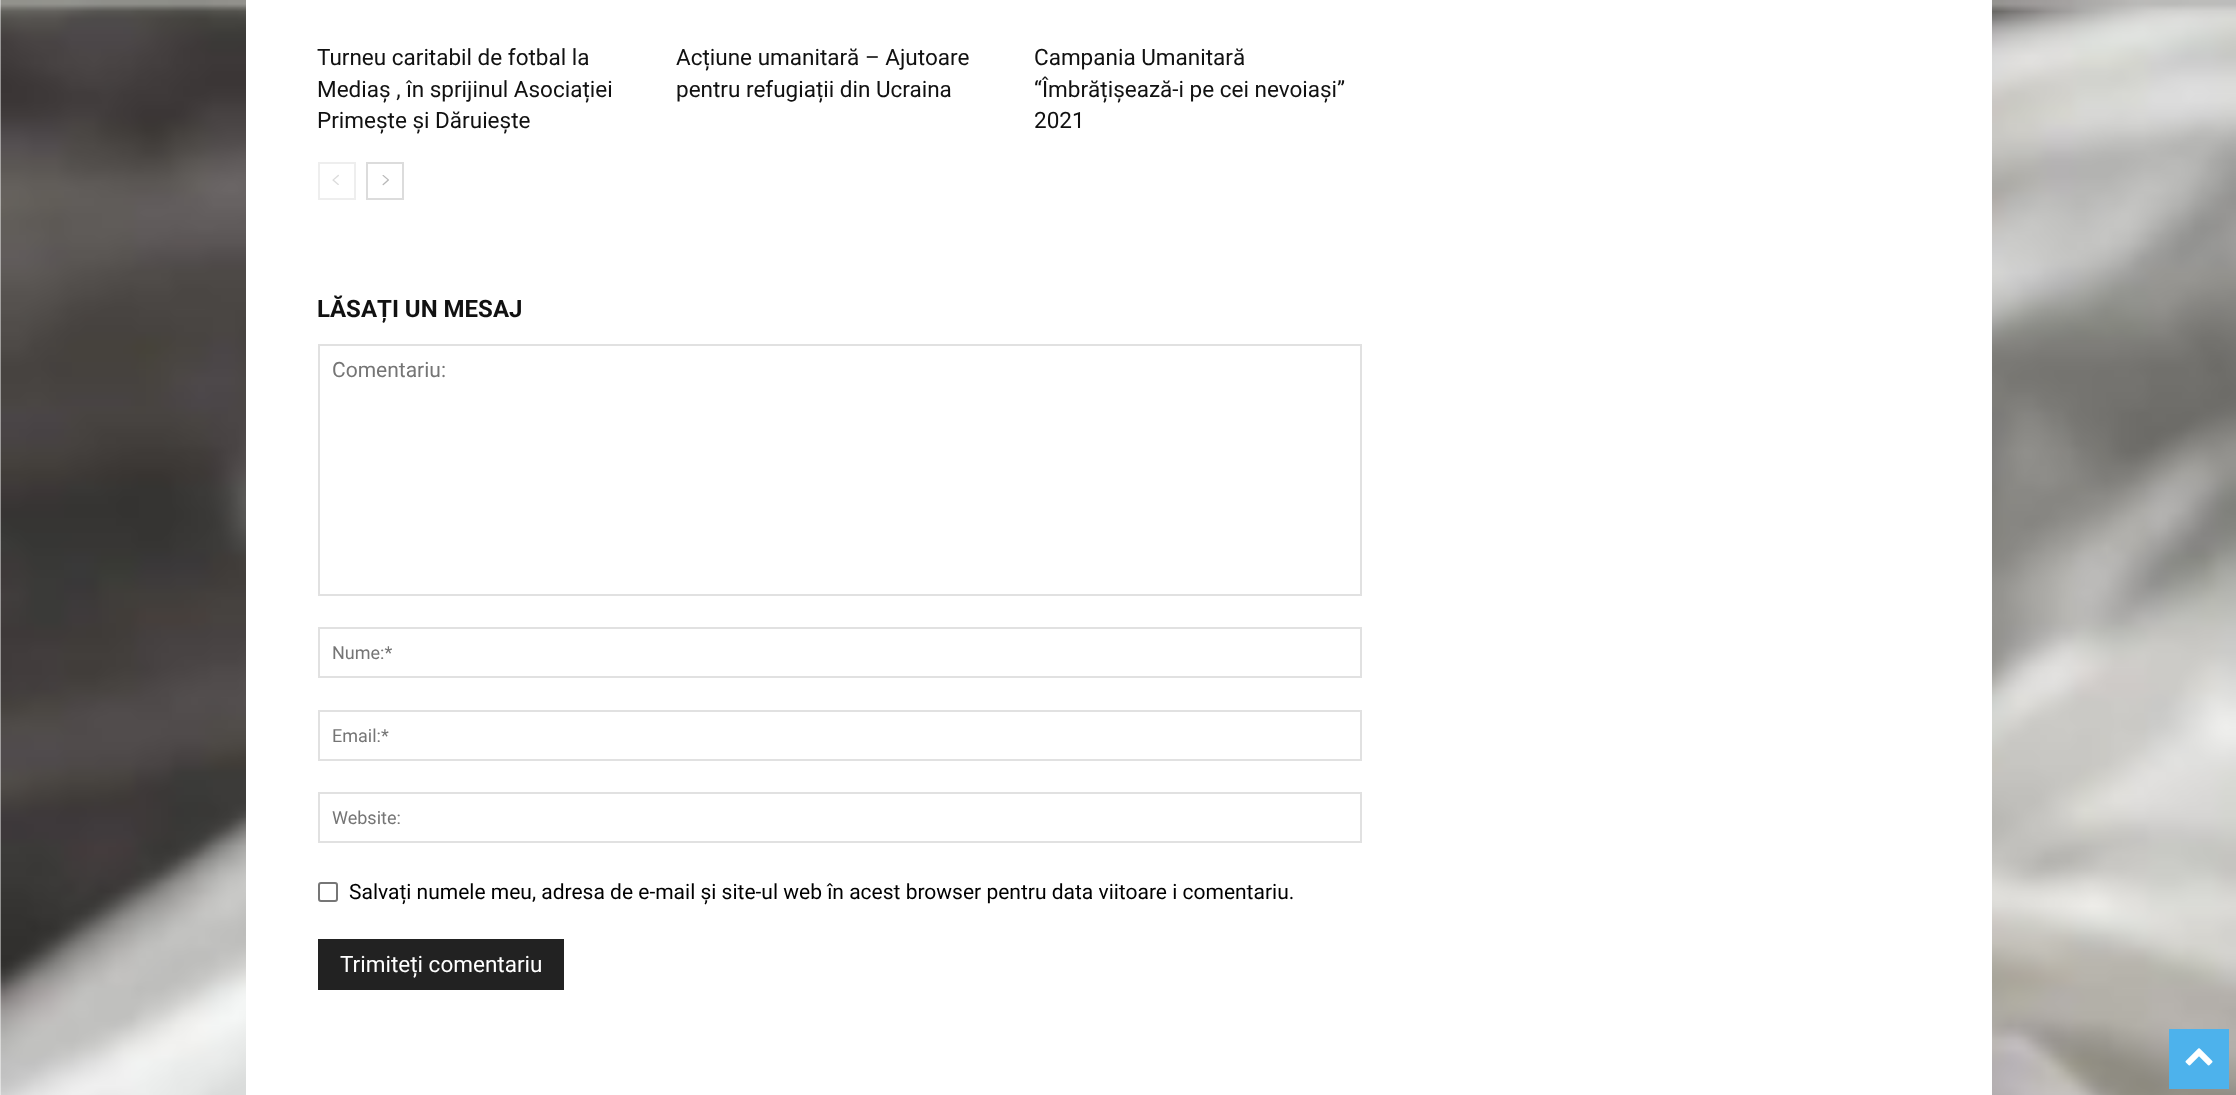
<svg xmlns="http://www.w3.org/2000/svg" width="2236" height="1095">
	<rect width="100%" height="100%" fill="#FFFFFF" />
	<image x="0" y="0" width="2236" height="1095" href="assets/img1.png" />
	<rect x="246" y="0" width="1746" height="1095" fill="#FFFFFF" />
	<g font-family="Roboto" font-size="22.5" fill="#111111">
		<text x="317" y="65">Turneu caritabil de fotbal la</text>
		<text x="317" y="97">Mediaș , în sprijinul Asociației</text>
		<text x="317" y="128">Primește și Dăruiește</text>
		<text x="676" y="65">Acțiune umanitară – Ajutoare</text>
		<text x="676" y="97">pentru refugiații din Ucraina</text>
		<text x="1034" y="65">Campania Umanitară</text>
		<text x="1034" y="97">“Îmbrățișează-i pe cei nevoiași”</text>
		<text x="1034" y="128">2021</text>
	</g>
	<rect x="319" y="163" width="36" height="36" fill="none" stroke="#EEEEEE" stroke-width="2" />
	<image x="332" y="174" width="7" height="11" href="assets/img2.png" />
	<rect x="367" y="163" width="36" height="36" fill="none" stroke="#DCDCDC" stroke-width="2" />
	<image x="382" y="175" width="7" height="11" href="assets/img3.png" />
	<text x="317" y="317" font-family="Roboto" font-size="24" font-weight="700" fill="#111111">LĂSAȚI UN MESAJ</text>
	<rect x="319" y="345" width="1042" height="250" fill="none" stroke="#E1E1E1" stroke-width="2" />
	<text x="332" y="377" font-family="Roboto" font-size="21" fill="#757575">Comentariu:</text>
	<rect x="319" y="628" width="1042" height="49" fill="none" stroke="#E1E1E1" stroke-width="2" />
	<text x="332" y="659" font-family="Roboto" font-size="18" fill="#757575">Nume:*</text>
	<rect x="319" y="711" width="1042" height="49" fill="none" stroke="#E1E1E1" stroke-width="2" />
	<text x="332" y="742" font-family="Roboto" font-size="18" fill="#757575">Email:*</text>
	<rect x="319" y="793" width="1042" height="49" fill="none" stroke="#E1E1E1" stroke-width="2" />
	<text x="332" y="824" font-family="Roboto" font-size="18" fill="#757575">Website:</text>
	<rect x="319" y="883" width="18" height="18" rx="2" fill="none" stroke="#767676" stroke-width="2" />
	<text x="349" y="899" font-family="Roboto" font-size="21" fill="#000000">Salvați numele meu, adresa de e-mail și site-ul web în acest browser pentru data viitoare i comentariu.</text>
	<rect x="318" y="939" width="246" height="51" fill="#222222" />
	<text x="340" y="972" font-family="Roboto" font-size="22.5" fill="#FFFFFF">Trimiteți comentariu</text>
	<rect x="2169" y="1029" width="60" height="60" fill="#4DB2EC" />
	<image x="2185" y="1048" width="28" height="18" href="assets/img4.png" />
</svg>
